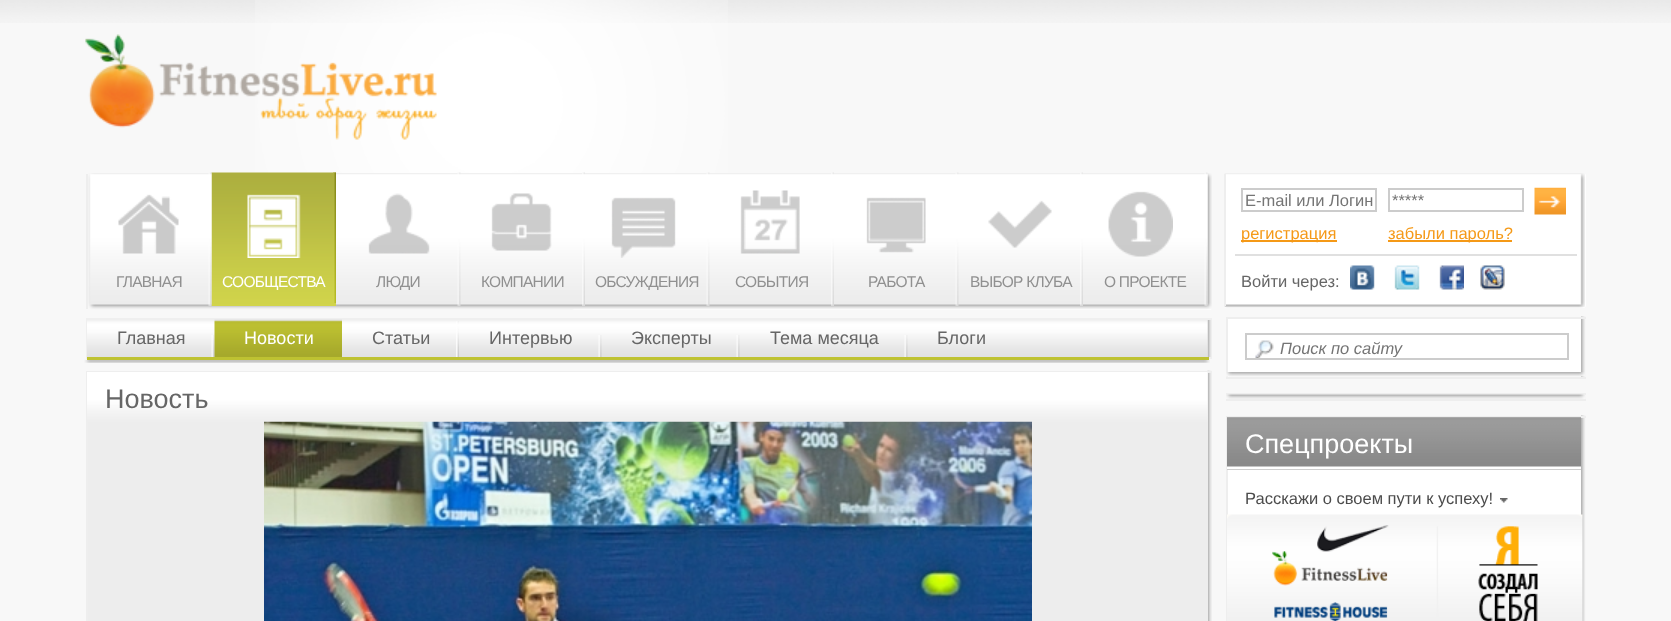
<svg xmlns="http://www.w3.org/2000/svg" width="1671" height="621">
	<defs>
		<clipPath id="clip1"><rect x="1280" y="339" width="285" height="18" /></clipPath>
	</defs>
	<rect width="100%" height="100%" fill="#F8F8F8" />
	<image x="0" y="0" width="1671" height="23" href="assets/img1.png" />
	<image x="255" y="0" width="473" height="173" href="assets/img2.png" />
	<image x="85" y="34" width="352" height="106" href="assets/img3.png" />
	<image x="88" y="173" width="1124" height="137" href="assets/img4.png" />
	<rect x="86" y="174" width="2" height="135" fill="#EEEEEE" />
	<image x="211" y="172" width="125" height="134" href="assets/img7.png" />
	<image x="208" y="172" width="4" height="134" href="assets/img5.png" />
	<image x="118" y="194" width="61" height="60" href="assets/img6.png" />
	<text x="116" y="287" font-family="Liberation Sans" font-size="15.5" letter-spacing="-0.75" fill="#909090">ГЛАВНАЯ</text>
	<image x="333" y="172" width="3" height="131" href="assets/img8.png" />
	<image x="247" y="194" width="54" height="64" href="assets/img9.png" />
	<text x="222" y="287" font-family="Liberation Sans" font-size="15.5" letter-spacing="-0.75" fill="#FFFFFF">СООБЩЕСТВА</text>
	<image x="457" y="172" width="4" height="134" href="assets/img10.png" />
	<image x="368" y="193" width="62" height="61" href="assets/img11.png" />
	<text x="376" y="287" font-family="Liberation Sans" font-size="15.5" letter-spacing="-0.75" fill="#909090">ЛЮДИ</text>
	<image x="582" y="172" width="3" height="134" href="assets/img12.png" />
	<image x="491" y="193" width="61" height="58" href="assets/img13.png" />
	<text x="481" y="287" font-family="Liberation Sans" font-size="15.5" letter-spacing="-0.75" fill="#909090">КОМПАНИИ</text>
	<image x="706" y="172" width="4" height="134" href="assets/img14.png" />
	<image x="611" y="197" width="65" height="61" href="assets/img15.png" />
	<text x="595" y="287" font-family="Liberation Sans" font-size="15.5" letter-spacing="-0.75" fill="#909090">ОБСУЖДЕНИЯ</text>
	<image x="831" y="172" width="3" height="134" href="assets/img16.png" />
	<image x="740" y="190" width="60" height="64" href="assets/img17.png" />
	<text x="735" y="287" font-family="Liberation Sans" font-size="15.5" letter-spacing="-0.75" fill="#909090">СОБЫТИЯ</text>
	<image x="955" y="172" width="4" height="134" href="assets/img18.png" />
	<image x="866" y="197" width="60" height="56" href="assets/img19.png" />
	<text x="868" y="287" font-family="Liberation Sans" font-size="15.5" letter-spacing="-0.75" fill="#909090">РАБОТА</text>
	<image x="1080" y="172" width="3" height="134" href="assets/img20.png" />
	<image x="988" y="200" width="64" height="48" href="assets/img21.png" />
	<text x="970" y="287" font-family="Liberation Sans" font-size="15.5" letter-spacing="-0.75" fill="#909090">ВЫБОР КЛУБА</text>
	<image x="1204" y="172" width="4" height="134" href="assets/img22.png" />
	<image x="1108" y="191" width="65" height="66" href="assets/img23.png" />
	<text x="1104" y="287" font-family="Liberation Sans" font-size="15.5" letter-spacing="-0.75" fill="#909090">О ПРОЕКТЕ</text>
	<rect x="1224" y="173" width="362" height="135" rx="3" fill="#FEFEFE" />
	<image x="1224" y="173" width="361" height="135" href="assets/img24.png" />
	<rect x="1224" y="174" width="2" height="132" fill="#EEEEEE" />
	<rect x="1235" y="254" width="342" height="2" fill="#E0E0E0" />
	<rect x="1242" y="189" width="134" height="22" fill="none" stroke="#CCCCCC" stroke-width="2" />
	<text x="1245" y="206" font-family="Liberation Sans" font-size="16.5" fill="#757575">E-mail или Логин</text>
	<rect x="1389" y="189" width="134" height="22" fill="none" stroke="#CCCCCC" stroke-width="2" />
	<text x="1392" y="206" font-family="Liberation Sans" font-size="16.5" fill="#757575">*****</text>
	<image x="1534" y="187" width="32" height="28" href="assets/img25.png" />
	<rect x="1241" y="240" width="96" height="2" fill="#F59917" />
	<text x="1241" y="239" font-family="Liberation Sans" font-size="16.5" fill="#F59917">регистрация</text>
	<rect x="1388" y="240" width="124" height="2" fill="#F59917" />
	<text x="1388" y="239" font-family="Liberation Sans" font-size="16.5" fill="#F59917">забыли пароль?</text>
	<text x="1241" y="287" font-family="Liberation Sans" font-size="16.5" fill="#666666">Войти через:</text>
	<image x="1350" y="265" width="25" height="25" href="assets/img26.png" />
	<image x="1394" y="265" width="26" height="25" href="assets/img27.png" />
	<image x="1439" y="265" width="25" height="25" href="assets/img28.png" />
	<image x="1480" y="265" width="25" height="25" href="assets/img29.png" />
	<image x="1207" y="320" width="5" height="37" href="assets/img30.png" />
	<rect x="86" y="318" width="1126" height="2" fill="#EFEFEF" />
	<rect x="1209" y="357" width="3" height="2" fill="#EFEFEF" />
	<rect x="86" y="318" width="2" height="41" fill="#EFEFEF" />
	<image x="87" y="320" width="1121" height="37" href="assets/img31.png" />
	<image x="84" y="359" width="1126" height="4" href="assets/img35.png" />
	<rect x="87" y="357" width="1122" height="3" fill="#BEC232" />
	<image x="211" y="335" width="4" height="22" href="assets/img32.png" />
	<text x="117" y="344" font-family="Liberation Sans" font-size="18" fill="#666666">Главная</text>
	<image x="214" y="319" width="128" height="38" href="assets/img33.png" />
	<text x="244" y="344" font-family="Liberation Sans" font-size="18" fill="#FFFFFF">Новости</text>
	<image x="456" y="321" width="3" height="36" href="assets/img34.png" />
	<text x="372" y="344" font-family="Liberation Sans" font-size="18" fill="#666666">Статьи</text>
	<image x="598" y="335" width="4" height="22" href="assets/img32.png" />
	<text x="489" y="344" font-family="Liberation Sans" font-size="18" fill="#666666">Интервью</text>
	<image x="736" y="335" width="4" height="22" href="assets/img32.png" />
	<text x="631" y="344" font-family="Liberation Sans" font-size="18" fill="#666666">Эксперты</text>
	<image x="904" y="335" width="4" height="22" href="assets/img32.png" />
	<g font-family="Liberation Sans" font-size="18" fill="#666666">
		<text x="770" y="344">Тема месяца</text>
		<text x="937" y="344">Блоги</text>
	</g>
	<rect x="1228" y="319" width="358" height="58" fill="#FFFFFF" />
	<image x="1581" y="316" width="5" height="61" href="assets/img36.png" />
	<rect x="1226" y="317" width="360" height="2" fill="#EEEEEE" />
	<rect x="1226" y="377" width="360" height="2" fill="#EEEEEE" />
	<rect x="1226" y="317" width="2" height="61" fill="#EEEEEE" />
	<image x="1255" y="340" width="19" height="18" href="assets/img37.png" />
	<rect x="1246" y="334" width="322" height="25" fill="none" stroke="#CCCCCC" stroke-width="2" />
	<g clip-path="url(#clip1)">
		<text x="1280" y="354" font-family="Liberation Sans" font-size="16.5" font-style="italic" fill="#757575">Поиск по сайту</text>
	</g>
	<image x="1226" y="372" width="359" height="5" href="assets/img38.png" />
	<rect x="1585" y="395" width="1" height="4" fill="#FFFFFF" />
	<image x="1585" y="395" width="1" height="4" href="assets/img39.png" />
	<rect x="1226" y="393" width="360" height="2" fill="#EEEEEE" />
	<rect x="1226" y="399" width="360" height="2" fill="#EEEEEE" />
	<rect x="1226" y="393" width="2" height="8" fill="#EEEEEE" />
	<image x="1226" y="394" width="359" height="5" href="assets/img40.png" />
	<rect x="1228" y="418" width="358" height="203" fill="#FFFFFF" />
	<image x="1581" y="415" width="5" height="206" href="assets/img41.png" />
	<rect x="1226" y="416" width="360" height="2" fill="#EEEEEE" />
	<rect x="1226" y="416" width="2" height="205" fill="#EEEEEE" />
	<rect x="1227" y="469" width="354" height="1" fill="#9B9B9B" />
	<image x="1227" y="417" width="354" height="53" href="assets/img42.png" />
	<text x="1245" y="453" font-family="Liberation Sans" font-size="27" fill="#FFFFFF">Спецпроекты</text>
	<text x="1245" y="504" font-family="Liberation Sans" font-size="16.5" fill="#4C4C4C">Расскажи о своем пути к успеху!</text>
	<image x="1500" y="498" width="8" height="5" href="assets/img43.png" />
	<image x="1227" y="514" width="356" height="107" href="assets/img44.png" />
	<image x="1207" y="370" width="5" height="251" href="assets/img45.png" />
	<rect x="86" y="371" width="1126" height="2" fill="#EEEEEE" />
	<rect x="86" y="371" width="2" height="250" fill="#EEEEEE" />
	<rect x="1207" y="372" width="1" height="50" fill="#EEEEEE" />
	<image x="87" y="372" width="1121" height="50" href="assets/img46.png" />
	<text x="105" y="408" font-family="Liberation Sans" font-size="27" fill="#666666">Новость</text>
	<rect x="88" y="422" width="1120" height="199" fill="#EDEDED" />
	<image x="264" y="421" width="768" height="200" href="assets/img47.png" />
</svg>
